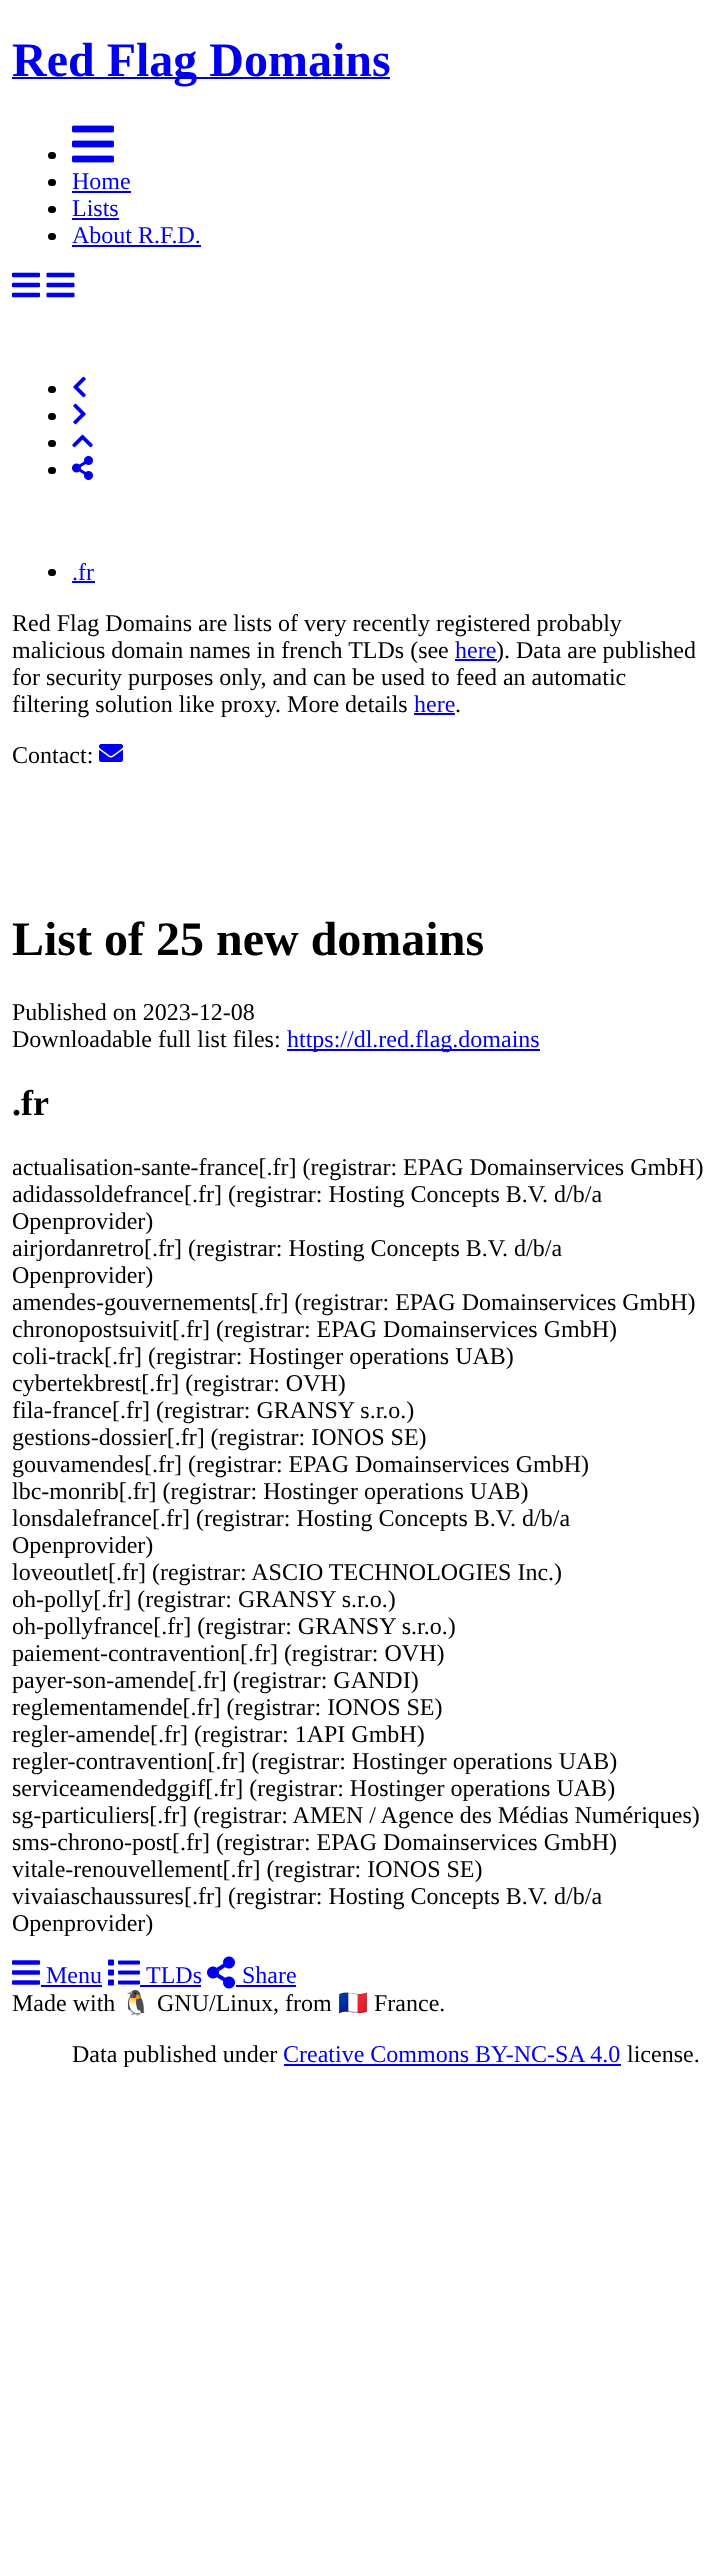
<svg xmlns="http://www.w3.org/2000/svg" width="720" height="2555">
	<rect width="100%" height="100%" fill="#FFFFFF" />
	<rect x="12" y="77" width="378" height="2" fill="#0000EE" />
	<text x="12" y="76" font-family="Liberation Serif" font-size="48" font-weight="700" fill="#0000EE">Red Flag Domains</text>
	<rect x="48" y="152" width="8" height="7" rx="3.5" fill="#000000" />
	<image x="72" y="125" width="42" height="38" href="assets/img1.png" />
	<rect x="48" y="179" width="8" height="7" rx="3.5" fill="#000000" />
	<text x="72" y="189" font-family="Liberation Serif" font-size="24" fill="#0000EE">Home</text>
	<rect x="72" y="191" width="59" height="2" fill="#0000EE" />
	<rect x="48" y="206" width="8" height="7" rx="3.5" fill="#000000" />
	<text x="72" y="216" font-family="Liberation Serif" font-size="24" fill="#0000EE">Lists</text>
	<rect x="72" y="218" width="47" height="2" fill="#0000EE" />
	<rect x="48" y="233" width="8" height="7" rx="3.5" fill="#000000" />
	<text x="72" y="243" font-family="Liberation Serif" font-size="24" fill="#0000EE">About R.F.D.</text>
	<rect x="72" y="245" width="129" height="2" fill="#0000EE" />
	<image x="12" y="272" width="28" height="26" href="assets/img2.png" />
	<image x="46" y="272" width="29" height="26" href="assets/img3.png" />
	<rect x="48" y="386" width="8" height="7" rx="3.5" fill="#000000" />
	<image x="73" y="376" width="13" height="22" href="assets/img4.png" />
	<rect x="48" y="413" width="8" height="7" rx="3.5" fill="#000000" />
	<image x="73" y="403" width="13" height="22" href="assets/img5.png" />
	<rect x="48" y="440" width="8" height="7" rx="3.5" fill="#000000" />
	<image x="72" y="434" width="21" height="14" href="assets/img6.png" />
	<rect x="48" y="467" width="8" height="7" rx="3.5" fill="#000000" />
	<image x="72" y="456" width="21" height="24" href="assets/img7.png" />
	<rect x="48" y="569" width="8" height="7" rx="3.5" fill="#000000" />
	<text x="72" y="580" font-family="Liberation Serif" font-size="24" fill="#0000EE">.fr</text>
	<rect x="72" y="581" width="23" height="2" fill="#0000EE" />
	<g font-family="Liberation Serif" font-size="24" fill="#000000">
		<text x="12" y="631">Red Flag Domains are lists of very recently registered probably</text>
		<text x="12" y="658">malicious domain names in french TLDs (see</text>
	</g>
	<text x="455" y="658" font-family="Liberation Serif" font-size="24" fill="#0000EE">here</text>
	<rect x="455" y="659" width="42" height="2" fill="#0000EE" />
	<g font-family="Liberation Serif" font-size="24" fill="#000000">
		<text x="496" y="658">). Data are published</text>
		<text x="12" y="685">for security purposes only, and can be used to feed an automatic</text>
		<text x="12" y="712">filtering solution like proxy. More details</text>
	</g>
	<text x="414" y="712" font-family="Liberation Serif" font-size="24" fill="#0000EE">here</text>
	<rect x="414" y="713" width="41" height="2" fill="#0000EE" />
	<g font-family="Liberation Serif" font-size="24" fill="#000000">
		<text x="455" y="712">.</text>
		<text x="12" y="763">Contact:</text>
	</g>
	<image x="99" y="744" width="24" height="18" href="assets/img8.png" />
	<text x="12" y="955" font-family="Liberation Serif" font-size="48" font-weight="700" fill="#000000">List of 25 new domains</text>
	<g font-family="Liberation Serif" font-size="24" fill="#000000">
		<text x="12" y="1020">Published on 2023-12-08</text>
		<text x="12" y="1047">Downloadable full list files:</text>
	</g>
	<rect x="287" y="1049" width="253" height="2" fill="#0000EE" />
	<text x="287" y="1047" font-family="Liberation Serif" font-size="24" fill="#0000EE">https://dl.red.flag.domains</text>
	<text x="12" y="1115" font-family="Liberation Serif" font-size="36" font-weight="700" fill="#000000">.fr</text>
	<g font-family="Liberation Serif" font-size="24" fill="#000000">
		<text x="12" y="1175">actualisation-sante-france[.fr] (registrar: EPAG Domainservices GmbH)</text>
		<text x="12" y="1202">adidassoldefrance[.fr] (registrar: Hosting Concepts B.V. d/b/a</text>
		<text x="12" y="1229">Openprovider)</text>
		<text x="12" y="1256">airjordanretro[.fr] (registrar: Hosting Concepts B.V. d/b/a</text>
		<text x="12" y="1283">Openprovider)</text>
		<text x="12" y="1310">amendes-gouvernements[.fr] (registrar: EPAG Domainservices GmbH)</text>
		<text x="12" y="1337">chronopostsuivit[.fr] (registrar: EPAG Domainservices GmbH)</text>
		<text x="12" y="1364">coli-track[.fr] (registrar: Hostinger operations UAB)</text>
		<text x="12" y="1391">cybertekbrest[.fr] (registrar: OVH)</text>
		<text x="12" y="1418">fila-france[.fr] (registrar: GRANSY s.r.o.)</text>
		<text x="12" y="1445">gestions-dossier[.fr] (registrar: IONOS SE)</text>
		<text x="12" y="1472">gouvamendes[.fr] (registrar: EPAG Domainservices GmbH)</text>
		<text x="12" y="1499">lbc-monrib[.fr] (registrar: Hostinger operations UAB)</text>
		<text x="12" y="1526">lonsdalefrance[.fr] (registrar: Hosting Concepts B.V. d/b/a</text>
		<text x="12" y="1553">Openprovider)</text>
		<text x="12" y="1580">loveoutlet[.fr] (registrar: ASCIO TECHNOLOGIES Inc.)</text>
		<text x="12" y="1607">oh-polly[.fr] (registrar: GRANSY s.r.o.)</text>
		<text x="12" y="1634">oh-pollyfrance[.fr] (registrar: GRANSY s.r.o.)</text>
		<text x="12" y="1661">paiement-contravention[.fr] (registrar: OVH)</text>
		<text x="12" y="1688">payer-son-amende[.fr] (registrar: GANDI)</text>
		<text x="12" y="1715">reglementamende[.fr] (registrar: IONOS SE)</text>
		<text x="12" y="1742">regler-amende[.fr] (registrar: 1API GmbH)</text>
		<text x="12" y="1769">regler-contravention[.fr] (registrar: Hostinger operations UAB)</text>
		<text x="12" y="1796">serviceamendedggif[.fr] (registrar: Hostinger operations UAB)</text>
		<text x="12" y="1823">sg-particuliers[.fr] (registrar: AMEN / Agence des Médias Numériques)</text>
		<text x="12" y="1850">sms-chrono-post[.fr] (registrar: EPAG Domainservices GmbH)</text>
		<text x="12" y="1877">vitale-renouvellement[.fr] (registrar: IONOS SE)</text>
		<text x="12" y="1904">vivaiaschaussures[.fr] (registrar: Hosting Concepts B.V. d/b/a</text>
		<text x="12" y="1931">Openprovider)</text>
	</g>
	<image x="12" y="1960" width="28" height="25" href="assets/img9.png" />
	<text x="46" y="1983" font-family="Liberation Serif" font-size="24" fill="#0000EE">Menu</text>
	<rect x="41" y="1985" width="61" height="2" fill="#0000EE" />
	<image x="108" y="1959" width="32" height="27" href="assets/img10.png" />
	<text x="146" y="1983" font-family="Liberation Serif" font-size="24" fill="#0000EE">TLDs</text>
	<rect x="140" y="1985" width="61" height="2" fill="#0000EE" />
	<image x="207" y="1956" width="28" height="33" href="assets/img11.png" />
	<text x="242" y="1983" font-family="Liberation Serif" font-size="24" fill="#0000EE">Share</text>
	<rect x="236" y="1985" width="60" height="2" fill="#0000EE" />
	<text x="12" y="2011" font-family="Liberation Serif" font-size="24" fill="#000000">Made with</text>
	<text x="121" y="2011" font-family="Noto Color Emoji" font-size="24" fill="#000000">🐧</text>
	<text x="157" y="2011" font-family="Liberation Serif" font-size="24" fill="#000000">GNU/Linux, from</text>
	<text x="338" y="2011" font-family="Noto Color Emoji" font-size="24" fill="#000000">🇫🇷</text>
	<g font-family="Liberation Serif" font-size="24" fill="#000000">
		<text x="374" y="2011">France.</text>
		<text x="72" y="2062">Data published under</text>
	</g>
	<text x="283" y="2062" font-family="Liberation Serif" font-size="24" fill="#0000EE">Creative Commons BY-NC-SA 4.0</text>
	<rect x="284" y="2064" width="337" height="2" fill="#0000EE" />
	<text x="627" y="2062" font-family="Liberation Serif" font-size="24" fill="#000000">license.</text>
</svg>
